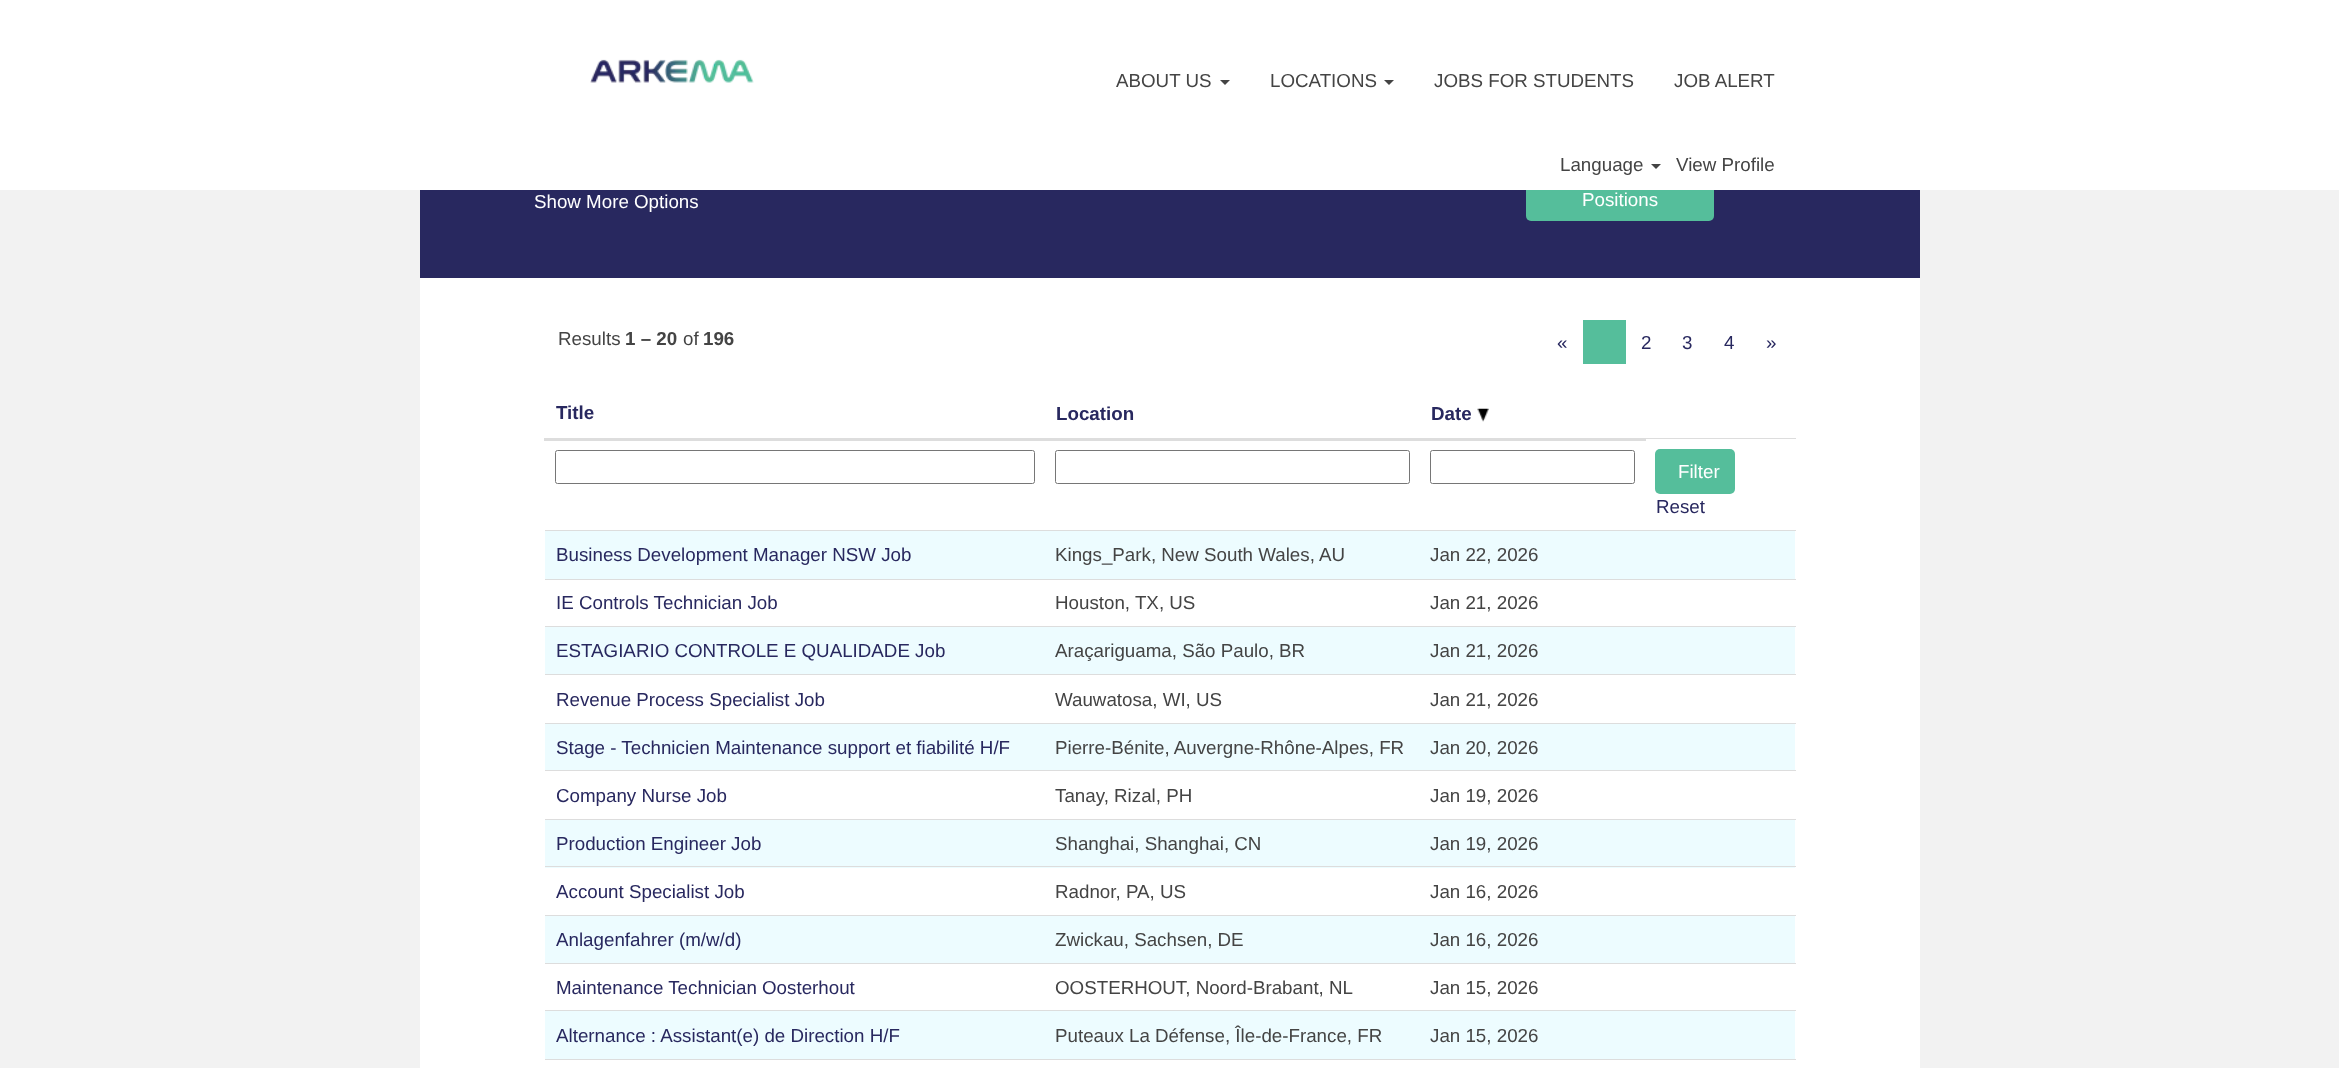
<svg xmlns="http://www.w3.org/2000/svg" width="2339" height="1068">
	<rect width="100%" height="100%" fill="#F2F2F2" />
	<rect x="420" y="190" width="1500" height="88" fill="#28285F" />
	<rect x="1526" y="150" width="188" height="71" rx="5" fill="#55BE9B" />
	<rect x="0" y="0" width="2339" height="190" fill="#FFFFFF" />
	<image x="590" y="59" width="164" height="24" href="assets/img1.png" />
	<text x="1116" y="87" font-family="Liberation Sans" font-size="18.75" fill="#444444">ABOUT US</text>
	<path d="M1220 80H1230L1225 85Z" fill="#444444" />
	<text x="1270" y="87" font-family="Liberation Sans" font-size="18.75" fill="#444444">LOCATIONS</text>
	<path d="M1384 80H1394L1389 85Z" fill="#444444" />
	<g font-family="Liberation Sans" font-size="18.75" fill="#444444">
		<text x="1434" y="87">JOBS FOR STUDENTS</text>
		<text x="1674" y="87">JOB ALERT</text>
		<text x="1560" y="171">Language</text>
	</g>
	<path d="M1651 164H1661L1656 169Z" fill="#444444" />
	<text x="1676" y="171" font-family="Liberation Sans" font-size="18.75" fill="#444444">View Profile</text>
	<rect x="420" y="278" width="1500" height="790" fill="#FFFFFF" />
	<g font-family="Liberation Sans" font-size="18.75" fill="#FFFFFF">
		<text x="534" y="208">Show More Options</text>
		<text x="1582" y="206">Positions</text>
	</g>
	<text x="558" y="345" font-family="Liberation Sans" font-size="18.75" fill="#444444">Results</text>
	<text x="625" y="345" font-family="Liberation Sans" font-size="18.75" font-weight="700" fill="#444444">1 – 20</text>
	<text x="683" y="345" font-family="Liberation Sans" font-size="18.75" fill="#444444">of</text>
	<text x="703" y="345" font-family="Liberation Sans" font-size="18.75" font-weight="700" fill="#444444">196</text>
	<text x="1557" y="349" font-family="Liberation Sans" font-size="18.75" fill="#28285F">«</text>
	<rect x="1583" y="320" width="43" height="44" fill="#55BE9B" />
	<g font-family="Liberation Sans" font-size="18.75" fill="#28285F">
		<text x="1641" y="349">2</text>
		<text x="1682" y="349">3</text>
		<text x="1724" y="349">4</text>
		<text x="1766" y="349">»</text>
	</g>
	<g font-family="Liberation Sans" font-size="18.75" font-weight="700" fill="#28285F">
		<text x="556" y="419">Title</text>
		<text x="1056" y="420">Location</text>
	</g>
	<rect x="1645" y="438" width="151" height="1" fill="#DDDDDD" />
	<rect x="544" y="438" width="1102" height="3" fill="#DDDDDD" />
	<text x="1431" y="420" font-family="Liberation Sans" font-size="18.75" font-weight="700" fill="#28285F">Date</text>
	<image x="1477" y="408" width="12" height="14" href="assets/img2.png" />
	<rect x="555.5" y="450.5" width="479" height="33" rx="2" fill="none" stroke="#767676" />
	<rect x="1055.5" y="450.5" width="354" height="33" rx="2" fill="none" stroke="#767676" />
	<rect x="1430.5" y="450.5" width="204" height="33" rx="2" fill="none" stroke="#767676" />
	<rect x="1655" y="449" width="80" height="45" rx="5" fill="#55BE9B" />
	<text x="1678" y="478" font-family="Liberation Sans" font-size="18.75" fill="#FFFFFF">Filter</text>
	<text x="1656" y="513" font-family="Liberation Sans" font-size="18.75" fill="#28285F">Reset</text>
	<rect x="545" y="531" width="1250" height="48" fill="#EDFCFF" />
	<rect x="545" y="530" width="1251" height="1" fill="#DDDDDD" />
	<text x="556" y="561" font-family="Liberation Sans" font-size="18.75" fill="#28285F">Business Development Manager NSW Job</text>
	<g font-family="Liberation Sans" font-size="18.75" fill="#444444">
		<text x="1055" y="561">Kings_Park, New South Wales, AU</text>
		<text x="1430" y="561">Jan 22, 2026</text>
	</g>
	<rect x="545" y="579" width="1251" height="1" fill="#DDDDDD" />
	<text x="556" y="609" font-family="Liberation Sans" font-size="18.75" fill="#28285F">IE Controls Technician Job</text>
	<g font-family="Liberation Sans" font-size="18.75" fill="#444444">
		<text x="1055" y="609">Houston, TX, US</text>
		<text x="1430" y="609">Jan 21, 2026</text>
	</g>
	<rect x="545" y="627" width="1250" height="47" fill="#EDFCFF" />
	<rect x="545" y="626" width="1251" height="1" fill="#DDDDDD" />
	<text x="556" y="657" font-family="Liberation Sans" font-size="18.75" fill="#28285F">ESTAGIARIO CONTROLE E QUALIDADE Job</text>
	<g font-family="Liberation Sans" font-size="18.75" fill="#444444">
		<text x="1055" y="657">Araçariguama, São Paulo, BR</text>
		<text x="1430" y="657">Jan 21, 2026</text>
	</g>
	<rect x="545" y="674" width="1251" height="1" fill="#DDDDDD" />
	<text x="556" y="706" font-family="Liberation Sans" font-size="18.75" fill="#28285F">Revenue Process Specialist Job</text>
	<g font-family="Liberation Sans" font-size="18.75" fill="#444444">
		<text x="1055" y="706">Wauwatosa, WI, US</text>
		<text x="1430" y="706">Jan 21, 2026</text>
	</g>
	<rect x="545" y="724" width="1250" height="46" fill="#EDFCFF" />
	<rect x="545" y="723" width="1251" height="1" fill="#DDDDDD" />
	<text x="556" y="754" font-family="Liberation Sans" font-size="18.75" fill="#28285F">Stage - Technicien Maintenance support et fiabilité H/F</text>
	<g font-family="Liberation Sans" font-size="18.75" fill="#444444">
		<text x="1055" y="754">Pierre-Bénite, Auvergne-Rhône-Alpes, FR</text>
		<text x="1430" y="754">Jan 20, 2026</text>
	</g>
	<rect x="545" y="770" width="1251" height="1" fill="#DDDDDD" />
	<text x="556" y="802" font-family="Liberation Sans" font-size="18.75" fill="#28285F">Company Nurse Job</text>
	<g font-family="Liberation Sans" font-size="18.75" fill="#444444">
		<text x="1055" y="802">Tanay, Rizal, PH</text>
		<text x="1430" y="802">Jan 19, 2026</text>
	</g>
	<rect x="545" y="820" width="1250" height="48" fill="#EDFCFF" />
	<rect x="545" y="819" width="1251" height="1" fill="#DDDDDD" />
	<text x="556" y="850" font-family="Liberation Sans" font-size="18.75" fill="#28285F">Production Engineer Job</text>
	<g font-family="Liberation Sans" font-size="18.75" fill="#444444">
		<text x="1055" y="850">Shanghai, Shanghai, CN</text>
		<text x="1430" y="850">Jan 19, 2026</text>
	</g>
	<rect x="545" y="866" width="1251" height="1" fill="#DDDDDD" />
	<text x="556" y="898" font-family="Liberation Sans" font-size="18.75" fill="#28285F">Account Specialist Job</text>
	<g font-family="Liberation Sans" font-size="18.75" fill="#444444">
		<text x="1055" y="898">Radnor, PA, US</text>
		<text x="1430" y="898">Jan 16, 2026</text>
	</g>
	<rect x="545" y="916" width="1250" height="47" fill="#EDFCFF" />
	<rect x="545" y="915" width="1251" height="1" fill="#DDDDDD" />
	<text x="556" y="946" font-family="Liberation Sans" font-size="18.75" fill="#28285F">Anlagenfahrer (m/w/d)</text>
	<g font-family="Liberation Sans" font-size="18.75" fill="#444444">
		<text x="1055" y="946">Zwickau, Sachsen, DE</text>
		<text x="1430" y="946">Jan 16, 2026</text>
	</g>
	<rect x="545" y="963" width="1251" height="1" fill="#DDDDDD" />
	<text x="556" y="994" font-family="Liberation Sans" font-size="18.75" fill="#28285F">Maintenance Technician Oosterhout</text>
	<g font-family="Liberation Sans" font-size="18.75" fill="#444444">
		<text x="1055" y="994">OOSTERHOUT, Noord-Brabant, NL</text>
		<text x="1430" y="994">Jan 15, 2026</text>
	</g>
	<rect x="545" y="1011" width="1250" height="48" fill="#EDFCFF" />
	<rect x="545" y="1010" width="1251" height="1" fill="#DDDDDD" />
	<text x="556" y="1042" font-family="Liberation Sans" font-size="18.75" fill="#28285F">Alternance : Assistant(e) de Direction H/F</text>
	<g font-family="Liberation Sans" font-size="18.75" fill="#444444">
		<text x="1055" y="1042">Puteaux La Défense, Île-de-France, FR</text>
		<text x="1430" y="1042">Jan 15, 2026</text>
	</g>
	<rect x="545" y="1059" width="1251" height="1" fill="#DDDDDD" />
</svg>
